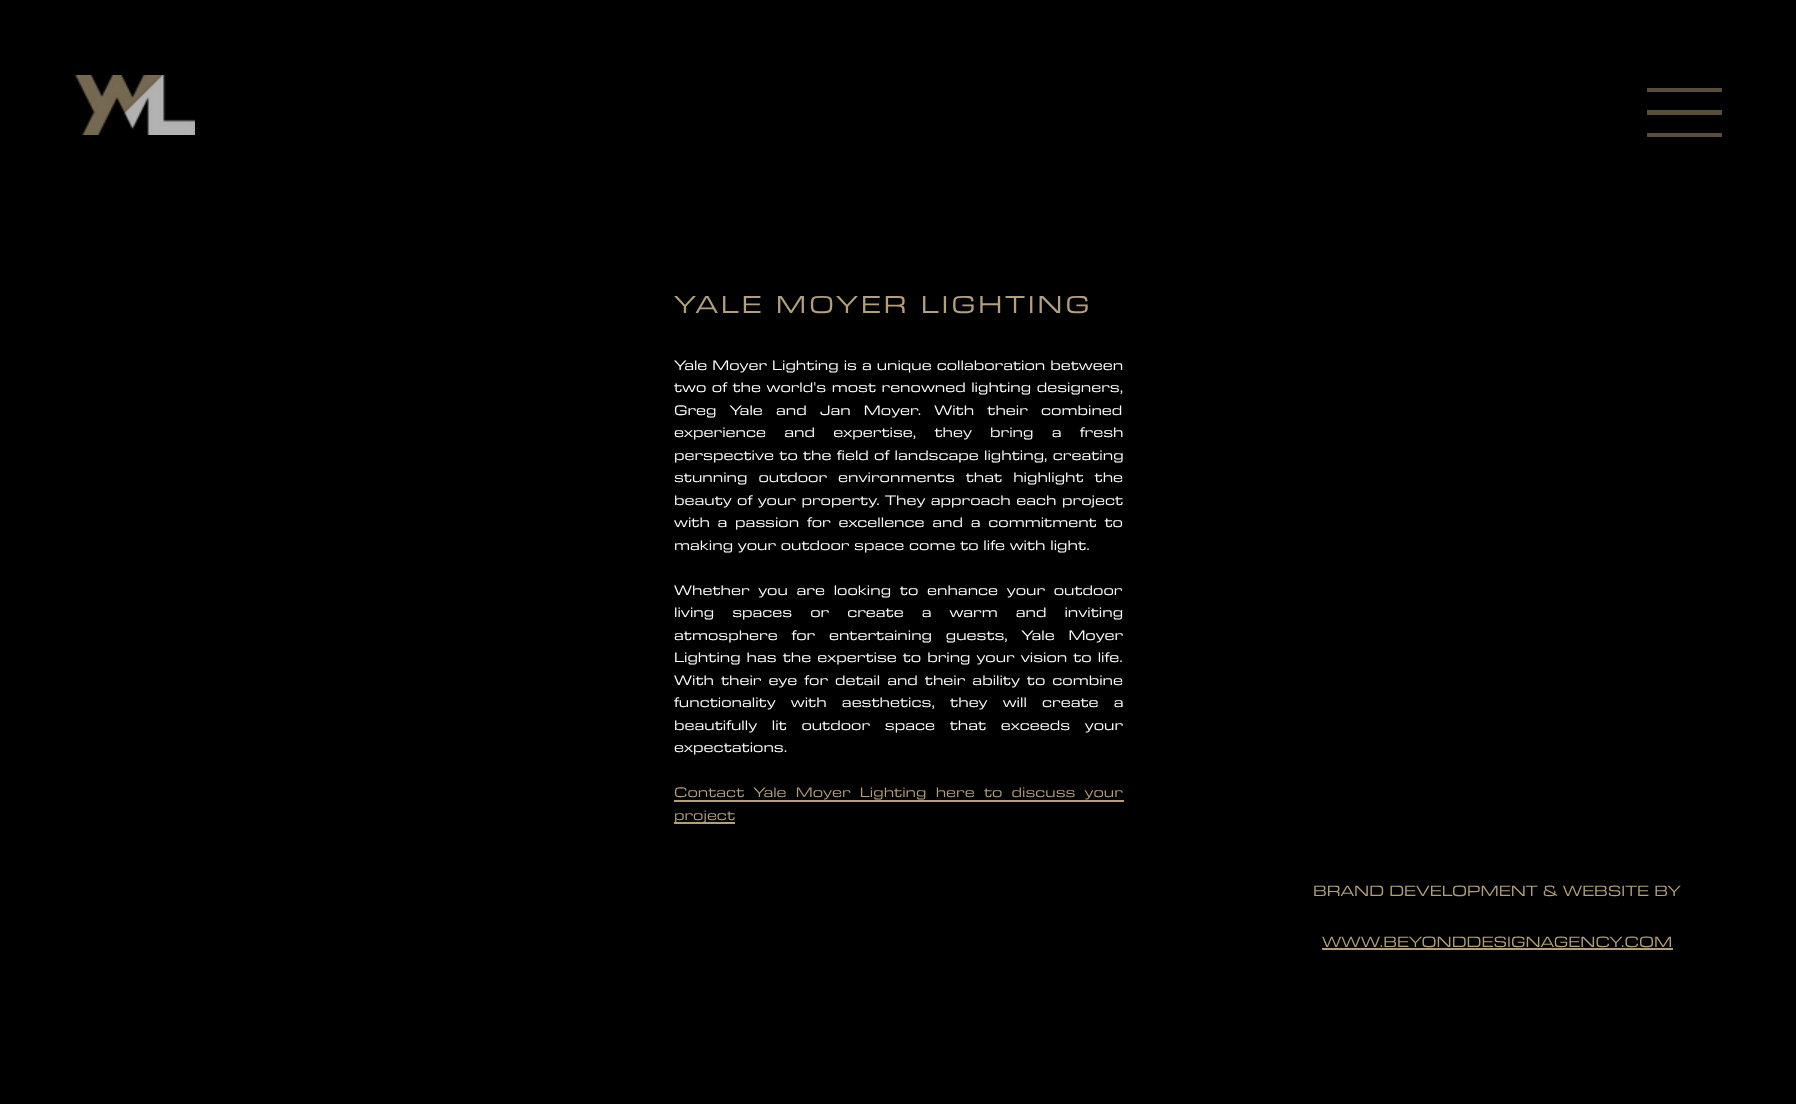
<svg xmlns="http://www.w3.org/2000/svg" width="1796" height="1104">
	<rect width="100%" height="100%" fill="#000000" />
	<image x="75" y="75" width="120" height="60" href="assets/img1.png" />
	<rect x="1647" y="88" width="75" height="4" fill="#584E3C" />
	<rect x="1647" y="110" width="75" height="5" fill="#584E3C" />
	<rect x="1647" y="133" width="75" height="4" fill="#584E3C" />
	<text x="674" y="313" font-family="'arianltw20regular'" font-size="30" letter-spacing="3.1" fill="#B39F79">YALE MOYER LIGHTING</text>
	<g font-family="'arianltw20regular'" font-size="16.95" fill="#FFFFFF">
		<text x="674" y="370" word-spacing="0.25">Yale Moyer Lighting is a unique collaboration between</text>
		<text x="674" y="392" word-spacing="0.75">two of the world's most renowned lighting designers,</text>
		<text x="674" y="415" word-spacing="8.5">Greg Yale and Jan Moyer. With their combined</text>
		<text x="674" y="437" word-spacing="13.5">experience and expertise, they bring a fresh</text>
		<text x="674" y="460" word-spacing="0.5">perspective to the field of landscape lighting, creating</text>
		<text x="674" y="482" word-spacing="6.25">stunning outdoor environments that highlight the</text>
		<text x="674" y="505" word-spacing="0.75">beauty of your property. They approach each project</text>
		<text x="674" y="527" word-spacing="3">with a passion for excellence and a commitment to</text>
		<text x="674" y="550">making your outdoor space come to life with light.</text>
		<text x="674" y="595" word-spacing="4">Whether you are looking to enhance your outdoor</text>
		<text x="674" y="617" word-spacing="13.25">living spaces or create a warm and inviting</text>
		<text x="674" y="640" word-spacing="9">atmosphere for entertaining guests, Yale Moyer</text>
		<text x="674" y="662" word-spacing="1.25">Lighting has the expertise to bring your vision to life.</text>
		<text x="674" y="685" word-spacing="2.25">With their eye for detail and their ability to combine</text>
		<text x="674" y="707" word-spacing="10.5">functionality with aesthetics, they will create a</text>
		<text x="674" y="730" word-spacing="10">beautifully lit outdoor space that exceeds your</text>
		<text x="674" y="752">expectations.</text>
	</g>
	<text x="674" y="797" word-spacing="4.5" font-family="'arianltw20regular'" font-size="16.95" fill="#B39F79">Contact Yale Moyer Lighting here to discuss your</text>
	<rect x="674" y="800" width="450" height="2" fill="#B39F79" />
	<rect x="674" y="822" width="61" height="2" fill="#B39F79" />
	<text x="674" y="820" font-family="'arianltw20regular'" font-size="16.95" fill="#B39F79">project</text>
	<g font-family="'arianltw20regular'" font-size="18.25" fill="#B39F79">
		<text x="1313" y="896">BRAND DEVELOPMENT &amp; WEBSITE BY</text>
		<text x="1322" y="947">WWW.BEYONDDESIGNAGENCY.COM</text>
	</g>
	<rect x="1322" y="948" width="351" height="2" fill="#B39F79" />
</svg>
